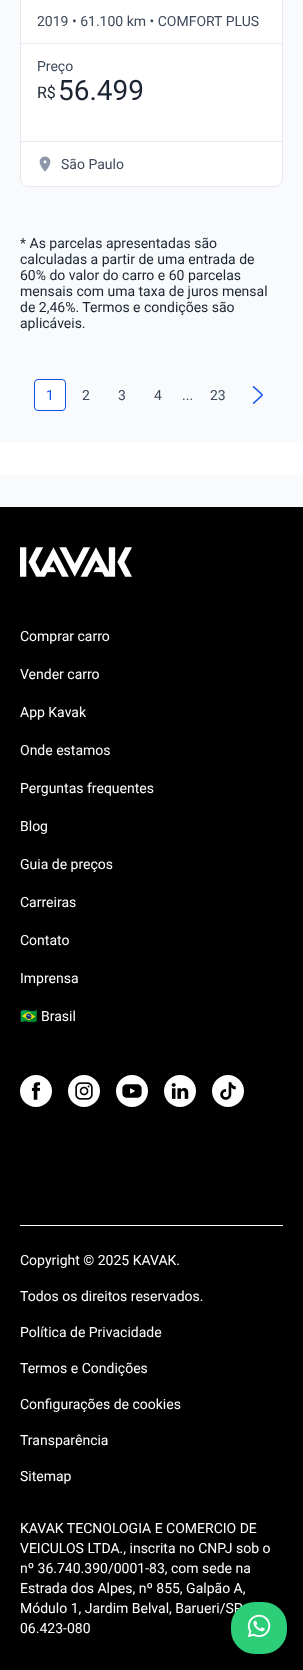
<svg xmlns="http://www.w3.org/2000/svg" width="303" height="1670">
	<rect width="100%" height="100%" fill="#F9FAFB" />
	<rect x="20.5" y="-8.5" width="262" height="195" rx="7.5" fill="#FFFFFF" stroke="#E7E9EE" />
	<rect x="21" y="43" width="261" height="1" fill="#E7E9EE" />
	<text x="37" y="26" font-family="Roboto" font-size="14" fill="#3E4A5B">2019 • 61.100 km • COMFORT PLUS</text>
	<rect x="21" y="141" width="261" height="1" fill="#E7E9EE" />
	<text x="37" y="71" font-family="Roboto" font-size="14" fill="#3E4A5B">Preço</text>
	<text x="37" y="98" font-family="Roboto" font-size="16" fill="#1B2532">R$</text>
	<text x="58" y="100" font-family="Roboto" font-size="28" fill="#1B2532">56.499</text>
	<image x="39" y="156" width="12" height="16" href="assets/img1.png" />
	<text x="61" y="169" font-family="Roboto" font-size="14" fill="#3E4A5B">São Paulo</text>
	<g font-family="Roboto" font-size="14" fill="#1B2532">
		<text x="20" y="248">* As parcelas apresentadas são</text>
		<text x="20" y="264">calculadas a partir de uma entrada de</text>
		<text x="20" y="280">60% do valor do carro e 60 parcelas</text>
		<text x="20" y="296">mensais com uma taxa de juros mensal</text>
		<text x="20" y="312">de 2,46%. Termos e condições são</text>
		<text x="20" y="328">aplicáveis.</text>
	</g>
	<rect x="34.5" y="379.5" width="31" height="31" rx="3.5" fill="#FFFFFF" stroke="#1351EC" />
	<text x="46" y="400" font-family="Roboto" font-size="14" fill="#1351EC">1</text>
	<g font-family="Roboto" font-size="14" fill="#3E4A5B">
		<text x="82" y="400">2</text>
		<text x="118" y="400">3</text>
		<text x="154" y="400">4</text>
		<text x="182" y="400">...</text>
		<text x="210" y="400">23</text>
	</g>
	<image x="252" y="386" width="11" height="18" href="assets/img2.png" />
	<rect x="0" y="443" width="303" height="32" fill="#FFFFFF" />
	<rect x="0" y="507" width="303" height="1163" fill="#000000" />
	<text x="20" y="1613" font-family="Roboto" font-size="14" fill="#FFFFFF">Módulo 1, Jardim Belval, Barueri/SP</text>
	<rect x="231" y="1602" width="56" height="52" rx="24" fill="#2CCE78" />
	<image x="247" y="1614" width="24" height="24" href="assets/img3.png" />
	<image x="20" y="547" width="112" height="30" href="assets/img4.png" />
	<g font-family="Roboto" font-size="14" fill="#FFFFFF">
		<text x="20" y="641">Comprar carro</text>
		<text x="20" y="679">Vender carro</text>
		<text x="20" y="717">App Kavak</text>
		<text x="20" y="755">Onde estamos</text>
		<text x="20" y="793">Perguntas frequentes</text>
		<text x="20" y="831">Blog</text>
		<text x="20" y="869">Guia de preços</text>
		<text x="20" y="907">Carreiras</text>
		<text x="20" y="945">Contato</text>
		<text x="20" y="983">Imprensa</text>
	</g>
	<text x="20" y="1021" font-family="Noto Color Emoji" font-size="14" fill="#FFFFFF">🇧🇷</text>
	<text x="41" y="1021" font-family="Roboto" font-size="14" fill="#FFFFFF">Brasil</text>
	<circle cx="36" cy="1091" r="16" fill="#FFFFFF" />
	<image x="31" y="1082" width="10" height="18" href="assets/img5.png" />
	<circle cx="84" cy="1091" r="16" fill="#FFFFFF" />
	<image x="75" y="1082" width="18" height="18" href="assets/img6.png" />
	<circle cx="132" cy="1091" r="16" fill="#FFFFFF" />
	<image x="122" y="1084" width="20" height="14" href="assets/img7.png" />
	<circle cx="180" cy="1091" r="16" fill="#FFFFFF" />
	<image x="171" y="1083" width="18" height="16" href="assets/img8.png" />
	<circle cx="228" cy="1091" r="16" fill="#FFFFFF" />
	<image x="220" y="1082" width="16" height="18" href="assets/img9.png" />
	<rect x="20" y="1225" width="263" height="1" fill="#FFFFFF" />
	<g font-family="Roboto" font-size="14" fill="#FFFFFF">
		<text x="20" y="1265">Copyright © 2025 KAVAK.</text>
		<text x="20" y="1301">Todos os direitos reservados.</text>
		<text x="20" y="1337">Política de Privacidade</text>
		<text x="20" y="1373">Termos e Condições</text>
		<text x="20" y="1409">Configurações de cookies</text>
		<text x="20" y="1445">Transparência</text>
		<text x="20" y="1481">Sitemap</text>
		<text x="20" y="1533">KAVAK TECNOLOGIA E COMERCIO DE</text>
		<text x="20" y="1553">VEICULOS LTDA., inscrita no CNPJ sob o</text>
		<text x="20" y="1573">nº 36.740.390/0001-83, com sede na</text>
		<text x="20" y="1593">Estrada dos Alpes, nº 855, Galpão A,</text>
		<text x="20" y="1633">06.423-080</text>
	</g>
</svg>
